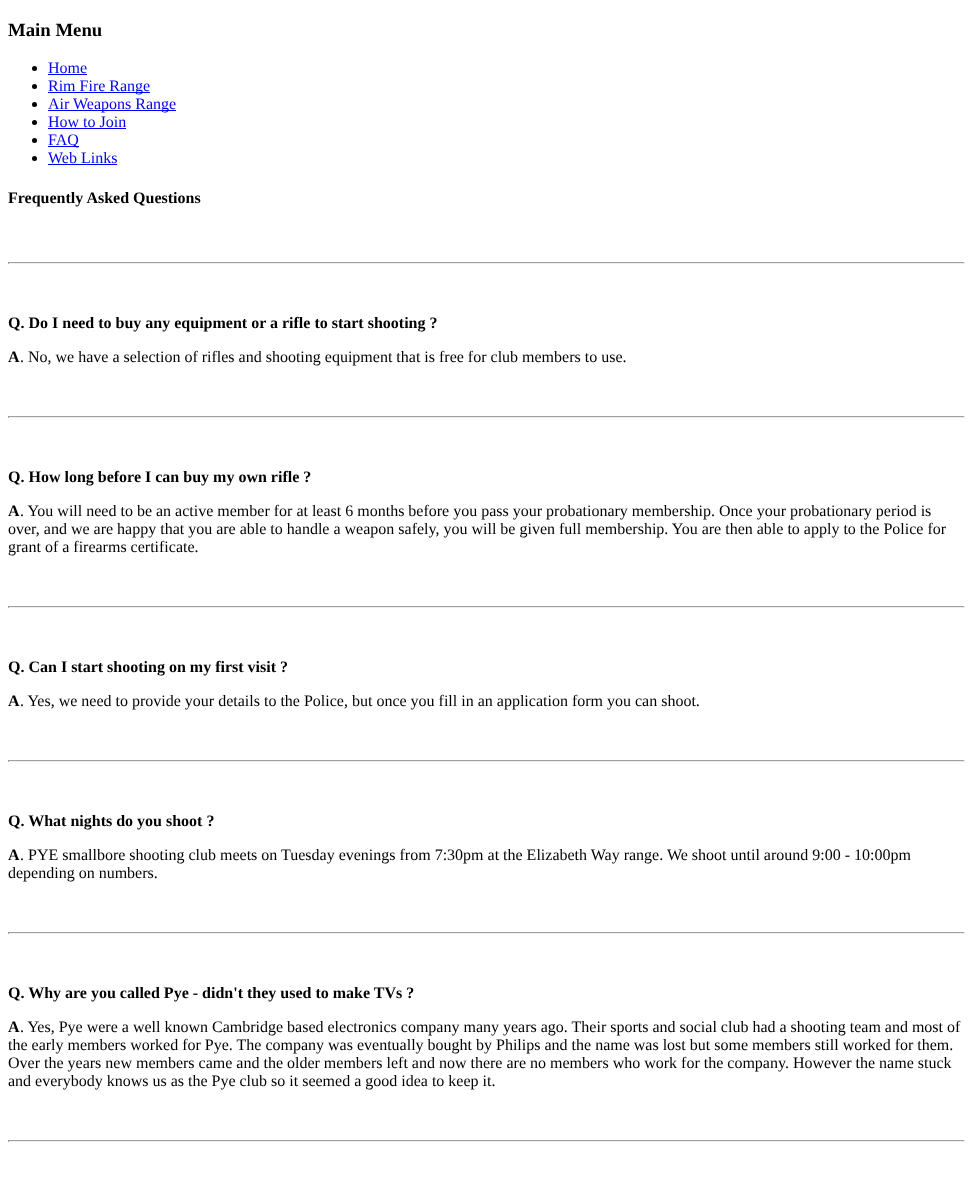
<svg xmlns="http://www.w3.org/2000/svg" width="973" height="1203">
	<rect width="100%" height="100%" fill="#FFFFFF" />
	<text x="8" y="36" font-family="Liberation Serif" font-size="18.75" font-weight="700" fill="#000000">Main Menu</text>
	<circle cx="34.5" cy="68.5" r="2.5" fill="#000000" />
	<text x="48" y="73" font-family="Liberation Serif" font-size="16" fill="#0000EE">Home</text>
	<rect x="48" y="74" width="39" height="1" fill="#0000EE" />
	<circle cx="34.5" cy="86.5" r="2.5" fill="#000000" />
	<rect x="48" y="92" width="102" height="1" fill="#0000EE" />
	<text x="48" y="91" font-family="Liberation Serif" font-size="16" fill="#0000EE">Rim Fire Range</text>
	<circle cx="34.5" cy="104.5" r="2.5" fill="#000000" />
	<rect x="48" y="110" width="128" height="1" fill="#0000EE" />
	<text x="48" y="109" font-family="Liberation Serif" font-size="16" fill="#0000EE">Air Weapons Range</text>
	<circle cx="34.5" cy="122.5" r="2.5" fill="#000000" />
	<text x="48" y="127" font-family="Liberation Serif" font-size="16" fill="#0000EE">How to Join</text>
	<rect x="48" y="128" width="78" height="1" fill="#0000EE" />
	<circle cx="34.5" cy="140.5" r="2.5" fill="#000000" />
	<rect x="48" y="146" width="31" height="1" fill="#0000EE" />
	<text x="48" y="145" font-family="Liberation Serif" font-size="16" fill="#0000EE">FAQ</text>
	<circle cx="34.5" cy="158.5" r="2.5" fill="#000000" />
	<text x="48" y="163" font-family="Liberation Serif" font-size="16" fill="#0000EE">Web Links</text>
	<rect x="48" y="164" width="69" height="1" fill="#0000EE" />
	<text x="8" y="203" font-family="Liberation Serif" font-size="16" font-weight="700" fill="#000000">Frequently Asked Questions</text>
	<rect x="8" y="262" width="957" height="1" fill="#9F9F9F" />
	<rect x="964" y="262" width="1" height="2" fill="#EEEEEE" />
	<rect x="8" y="263" width="957" height="1" fill="#EEEEEE" />
	<rect x="8" y="262" width="1" height="2" fill="#9F9F9F" />
	<g font-family="Liberation Serif" font-size="16" font-weight="700" fill="#000000">
		<text x="8" y="328">Q. Do I need to buy any equipment or a rifle to start shooting ?</text>
		<text x="8" y="362">A</text>
	</g>
	<text x="20" y="362" font-family="Liberation Serif" font-size="16" fill="#000000">. No, we have a selection of rifles and shooting equipment that is free for club members to use.</text>
	<rect x="8" y="416" width="957" height="1" fill="#9F9F9F" />
	<rect x="964" y="416" width="1" height="2" fill="#EEEEEE" />
	<rect x="8" y="417" width="957" height="1" fill="#EEEEEE" />
	<rect x="8" y="416" width="1" height="2" fill="#9F9F9F" />
	<g font-family="Liberation Serif" font-size="16" font-weight="700" fill="#000000">
		<text x="8" y="482">Q. How long before I can buy my own rifle ?</text>
		<text x="8" y="516">A</text>
	</g>
	<g font-family="Liberation Serif" font-size="16" fill="#000000">
		<text x="20" y="516">. You will need to be an active member for at least 6 months before you pass your probationary membership. Once your probationary period is</text>
		<text x="8" y="534">over, and we are happy that you are able to handle a weapon safely, you will be given full membership. You are then able to apply to the Police for</text>
		<text x="8" y="552">grant of a firearms certificate.</text>
	</g>
	<rect x="8" y="606" width="957" height="1" fill="#9F9F9F" />
	<rect x="964" y="606" width="1" height="2" fill="#EEEEEE" />
	<rect x="8" y="607" width="957" height="1" fill="#EEEEEE" />
	<rect x="8" y="606" width="1" height="2" fill="#9F9F9F" />
	<g font-family="Liberation Serif" font-size="16" font-weight="700" fill="#000000">
		<text x="8" y="672">Q. Can I start shooting on my first visit ?</text>
		<text x="8" y="706">A</text>
	</g>
	<text x="20" y="706" font-family="Liberation Serif" font-size="16" fill="#000000">. Yes, we need to provide your details to the Police, but once you fill in an application form you can shoot.</text>
	<rect x="8" y="760" width="957" height="1" fill="#9F9F9F" />
	<rect x="964" y="760" width="1" height="2" fill="#EEEEEE" />
	<rect x="8" y="761" width="957" height="1" fill="#EEEEEE" />
	<rect x="8" y="760" width="1" height="2" fill="#9F9F9F" />
	<g font-family="Liberation Serif" font-size="16" font-weight="700" fill="#000000">
		<text x="8" y="826">Q. What nights do you shoot ?</text>
		<text x="8" y="860">A</text>
	</g>
	<g font-family="Liberation Serif" font-size="16" fill="#000000">
		<text x="20" y="860">. PYE smallbore shooting club meets on Tuesday evenings from 7:30pm at the Elizabeth Way range. We shoot until around 9:00 - 10:00pm</text>
		<text x="8" y="878">depending on numbers.</text>
	</g>
	<rect x="8" y="932" width="957" height="1" fill="#9F9F9F" />
	<rect x="964" y="932" width="1" height="2" fill="#EEEEEE" />
	<rect x="8" y="933" width="957" height="1" fill="#EEEEEE" />
	<rect x="8" y="932" width="1" height="2" fill="#9F9F9F" />
	<g font-family="Liberation Serif" font-size="16" font-weight="700" fill="#000000">
		<text x="8" y="998">Q. Why are you called Pye - didn't they used to make TVs ?</text>
		<text x="8" y="1032">A</text>
	</g>
	<g font-family="Liberation Serif" font-size="16" fill="#000000">
		<text x="20" y="1032">. Yes, Pye were a well known Cambridge based electronics company many years ago. Their sports and social club had a shooting team and most of</text>
		<text x="8" y="1050">the early members worked for Pye. The company was eventually bought by Philips and the name was lost but some members still worked for them.</text>
		<text x="8" y="1068">Over the years new members came and the older members left and now there are no members who work for the company. However the name stuck</text>
		<text x="8" y="1086">and everybody knows us as the Pye club so it seemed a good idea to keep it.</text>
	</g>
	<rect x="8" y="1140" width="957" height="1" fill="#9F9F9F" />
	<rect x="964" y="1140" width="1" height="2" fill="#EEEEEE" />
	<rect x="8" y="1141" width="957" height="1" fill="#EEEEEE" />
	<rect x="8" y="1140" width="1" height="2" fill="#9F9F9F" />
</svg>
